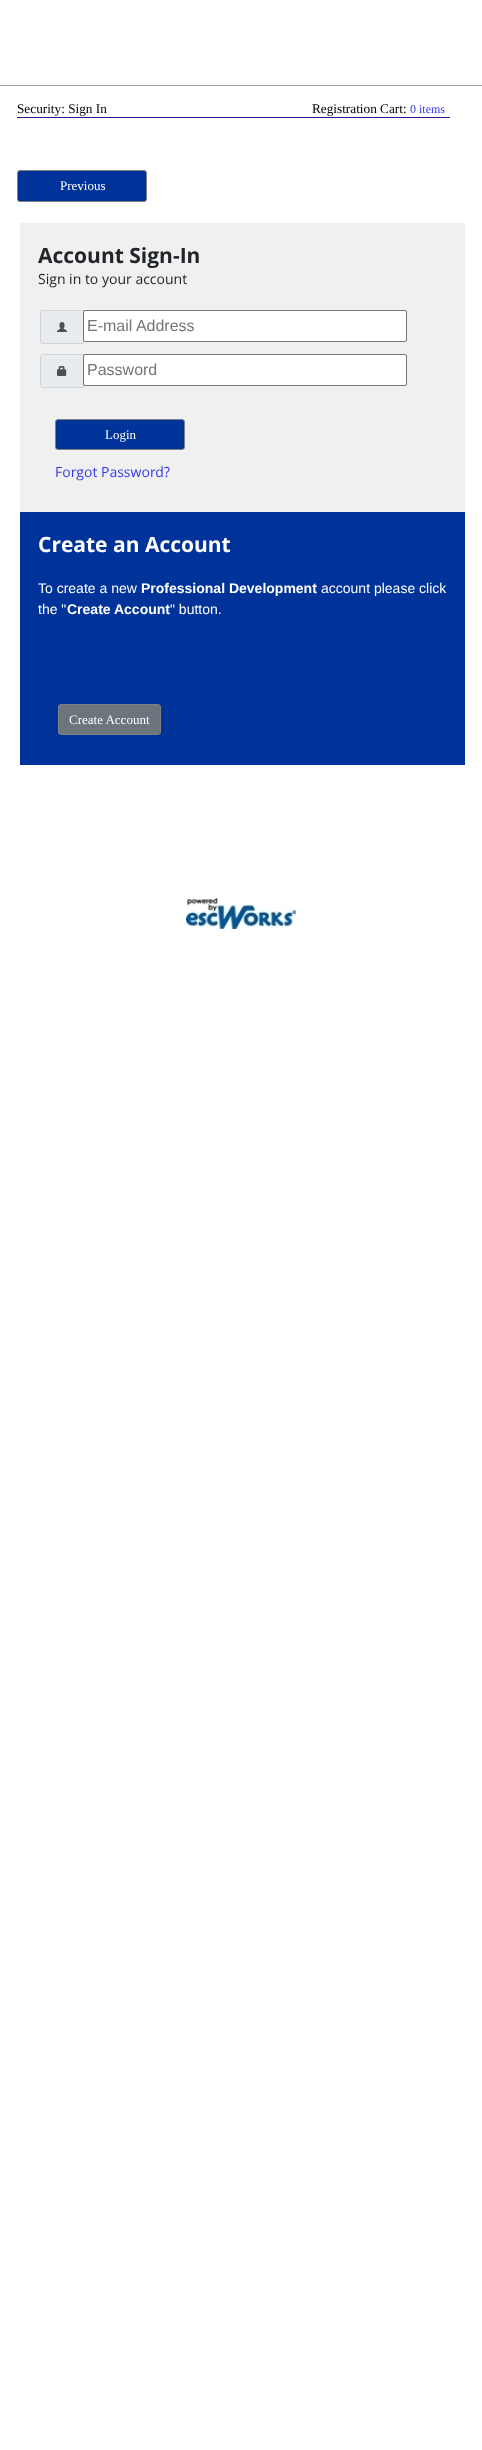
<svg xmlns="http://www.w3.org/2000/svg" width="482" height="2450">
	<rect width="100%" height="100%" fill="#FFFFFF" />
	<rect x="0" y="85" width="482" height="1" fill="#9A9A9A" />
	<rect x="17" y="117" width="433" height="1" fill="#2E128F" />
	<g font-family="Liberation Serif" font-size="13.25" fill="#000000">
		<text x="17" y="113">Security: Sign In</text>
		<text x="312" y="113">Registration Cart:</text>
	</g>
	<text x="410" y="113" font-family="Liberation Serif" font-size="12" fill="#3437EB">0 items</text>
	<rect x="17.5" y="170.5" width="129" height="31" rx="2.5" fill="#003399" stroke="#808080" />
	<text x="60" y="190" font-family="Liberation Serif" font-size="13" fill="#FFFFFF">Previous</text>
	<rect x="20" y="223" width="445" height="289" fill="#F0F0F0" />
	<text x="38" y="263" font-family="Open Sans" font-size="21" font-weight="700" fill="#212529">Account Sign-In</text>
	<text x="38" y="284" font-family="Open Sans" font-size="14" fill="#212529">Sign in to your account</text>
	<path d="M42.5 310.5H83.5V343.5H42.5C41.5 343.5 40.5 342.5 40.5 341.5V312.5C40.5 311.5 41.5 310.5 42.5 310.5Z" fill="#E9ECEF" stroke="#CED4DA" />
	<image x="57" y="322" width="10" height="10" href="assets/img1.png" />
	<rect x="83.5" y="310.5" width="323" height="31" rx="1.5" fill="#FFFFFF" stroke="#767676" />
	<text x="87" y="331" font-family="Liberation Sans" font-size="16" fill="#757575">E-mail Address</text>
	<path d="M42.5 354.5H83.5V387.5H42.5C41.5 387.5 40.5 386.5 40.5 385.5V356.5C40.5 355.5 41.5 354.5 42.5 354.5Z" fill="#E9ECEF" stroke="#CED4DA" />
	<image x="57" y="366" width="10" height="10" href="assets/img2.png" />
	<rect x="83.5" y="354.5" width="323" height="31" rx="1.5" fill="#FFFFFF" stroke="#767676" />
	<text x="87" y="375" font-family="Liberation Sans" font-size="16" fill="#757575">Password</text>
	<rect x="55.5" y="419.5" width="129" height="30" rx="2.5" fill="#003399" stroke="#808080" />
	<text x="105" y="439" font-family="Liberation Serif" font-size="13" fill="#FFFFFF">Login</text>
	<text x="55" y="477" font-family="Open Sans" font-size="14" fill="#3437EB">Forgot Password?</text>
	<rect x="20" y="512" width="445" height="253" fill="#003399" />
	<text x="38" y="552" font-family="Open Sans" font-size="21" font-weight="700" fill="#FFFFFF">Create an Account</text>
	<text x="38" y="593" font-family="Liberation Sans" font-size="14" fill="#FFFFFF">To create a new</text>
	<text x="141" y="593" font-family="Liberation Sans" font-size="14" font-weight="700" fill="#FFFFFF">Professional Development</text>
	<g font-family="Liberation Sans" font-size="14" fill="#FFFFFF">
		<text x="321" y="593">account please click</text>
		<text x="38" y="614">the "</text>
	</g>
	<text x="67" y="614" font-family="Liberation Sans" font-size="14" font-weight="700" fill="#FFFFFF">Create Account</text>
	<text x="170" y="614" font-family="Liberation Sans" font-size="14" fill="#FFFFFF">" button.</text>
	<rect x="58.5" y="704.5" width="102" height="30" rx="2.5" fill="#6C757D" stroke="#808080" />
	<text x="69" y="724" font-family="Liberation Serif" font-size="13" fill="#FFFFFF">Create Account</text>
	<image x="186" y="898" width="110" height="31" href="assets/img3.png" />
</svg>
